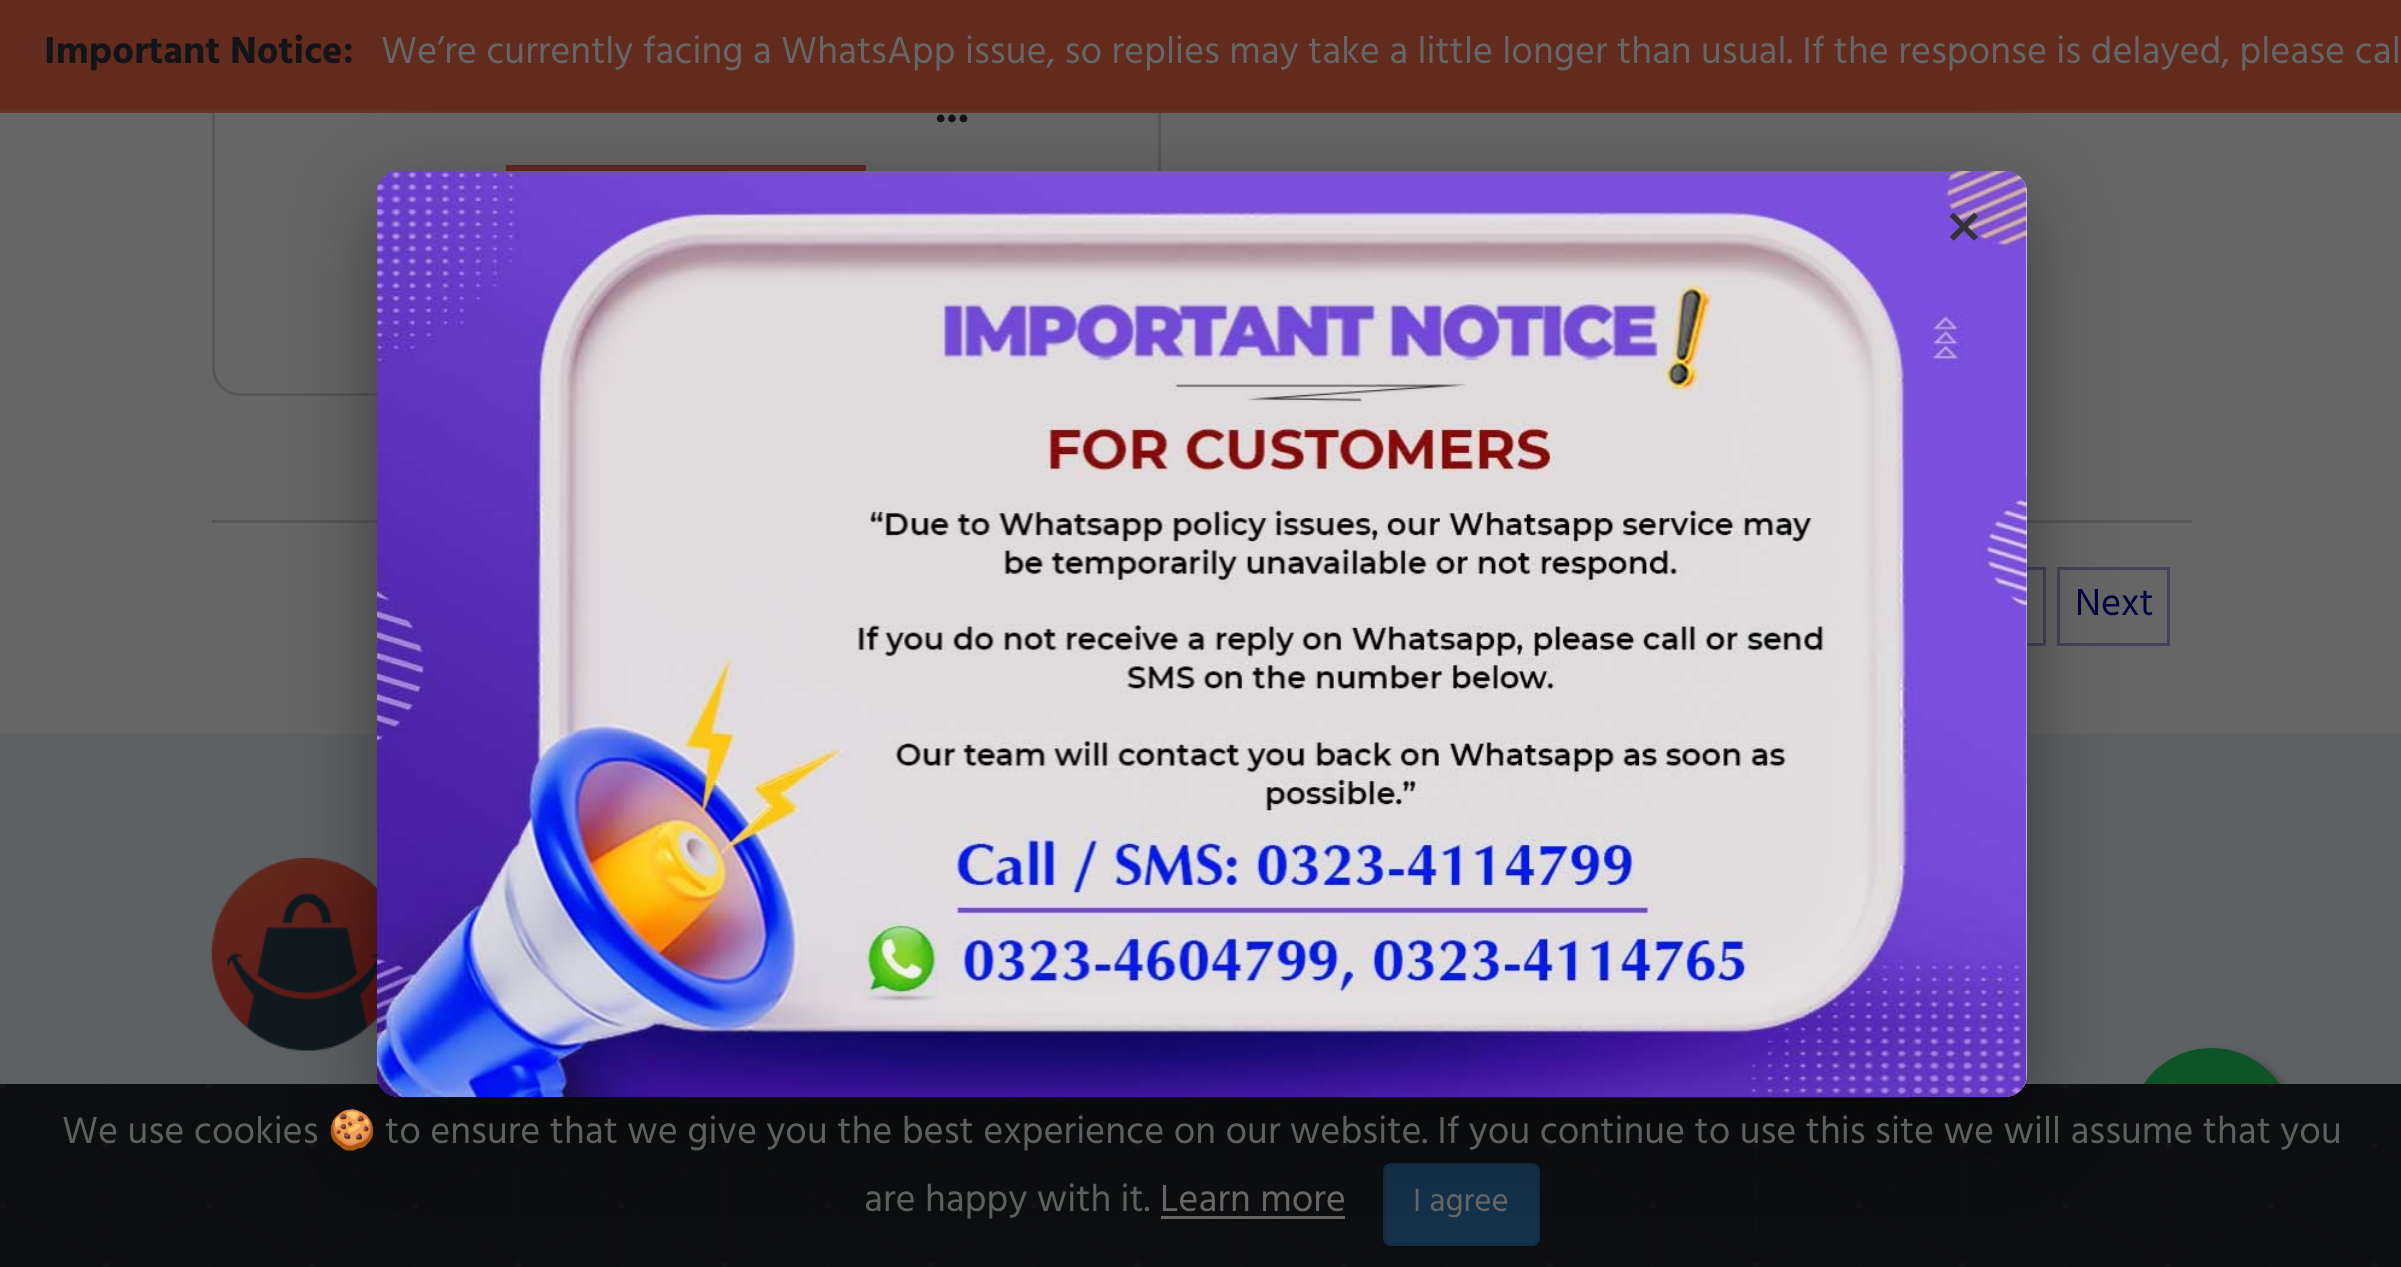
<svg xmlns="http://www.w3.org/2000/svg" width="2401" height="1267">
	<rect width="100%" height="100%" fill="#666666" />
	<rect x="213.5" y="-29.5" width="946" height="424" rx="26.5" fill="none" stroke="#575757" stroke-width="3" />
	<rect x="0" y="0" width="2401" height="110" fill="#632A1E" />
	<rect x="0" y="110" width="2401" height="3" fill="#643328" />
	<text x="44" y="63" font-family="Hind" font-size="38.5" font-weight="700" fill="#131417">Important Notice:</text>
	<text x="381" y="63" font-family="Hind" font-size="38.5" fill="#666666">We’re currently facing a WhatsApp issue, so replies may take a little longer than usual. If the response is delayed, please cal</text>
	<rect x="212" y="520" width="1980" height="3" fill="#575757" />
	<text x="935" y="122" font-family="Hind" font-size="44" font-weight="700" fill="#131417">...</text>
	<rect x="506" y="165" width="360" height="6" fill="#632A1E" />
	<rect x="1998.5" y="568.5" width="46" height="76" fill="none" stroke="#444458" stroke-width="3" />
	<rect x="2058.5" y="568.5" width="110" height="76" fill="none" stroke="#444458" stroke-width="3" />
	<text x="2075" y="615" font-family="Hind" font-size="38.5" fill="#00003D">Next</text>
	<rect x="0" y="734" width="2401" height="350" fill="#5E6164" />
	<image x="211" y="858" width="166" height="193" href="assets/img2.png" />
	<rect x="2134" y="1053" width="165" height="165" rx="82.5" fill="#3D3D3D" filter="blur(4px)" />
	<circle cx="2211.5" cy="1130.5" r="82.5" fill="#0F5429" />
	<image x="0" y="1084" width="2400" height="183" href="assets/img3.png" />
	<rect x="1161" y="1216" width="184" height="3" fill="#666666" />
	<rect x="1384.5" y="1164.5" width="154" height="80" rx="6.5" fill="#143149" stroke="#122C42" stroke-width="3" />
	<rect x="377" y="198" width="1650" height="927" rx="22" fill="#000000" fill-opacity="0.4" filter="blur(41px)" />
	<rect x="377" y="171" width="1650" height="926" rx="22" fill="#FFFFFF" />
	<image x="377" y="171" width="1650" height="927" href="assets/img1.png" />
	<text x="1945" y="253" font-family="Hind" font-size="77" fill="#333333">×</text>
	<rect x="2400" y="1084" width="1" height="183" fill="#0D0E10" />
	<text x="62" y="1143" font-family="Hind" font-size="38.5" fill="#5E6060">We use cookies</text>
	<text x="328" y="1143" font-family="Noto Color Emoji" font-size="38.5" fill="#5E6060">🍪</text>
	<g font-family="Hind" font-size="38.5" fill="#5E6060">
		<text x="385" y="1143">to ensure that we give you the best experience on our website. If you continue to use this site we will assume that you</text>
		<text x="864" y="1211">are happy with it.</text>
	</g>
	<text x="1160" y="1211" font-family="Hind" font-size="38.5" fill="#666666">Learn more</text>
	<text x="1413" y="1211" font-family="Hind" font-size="33" fill="#666666">I agree</text>
</svg>
